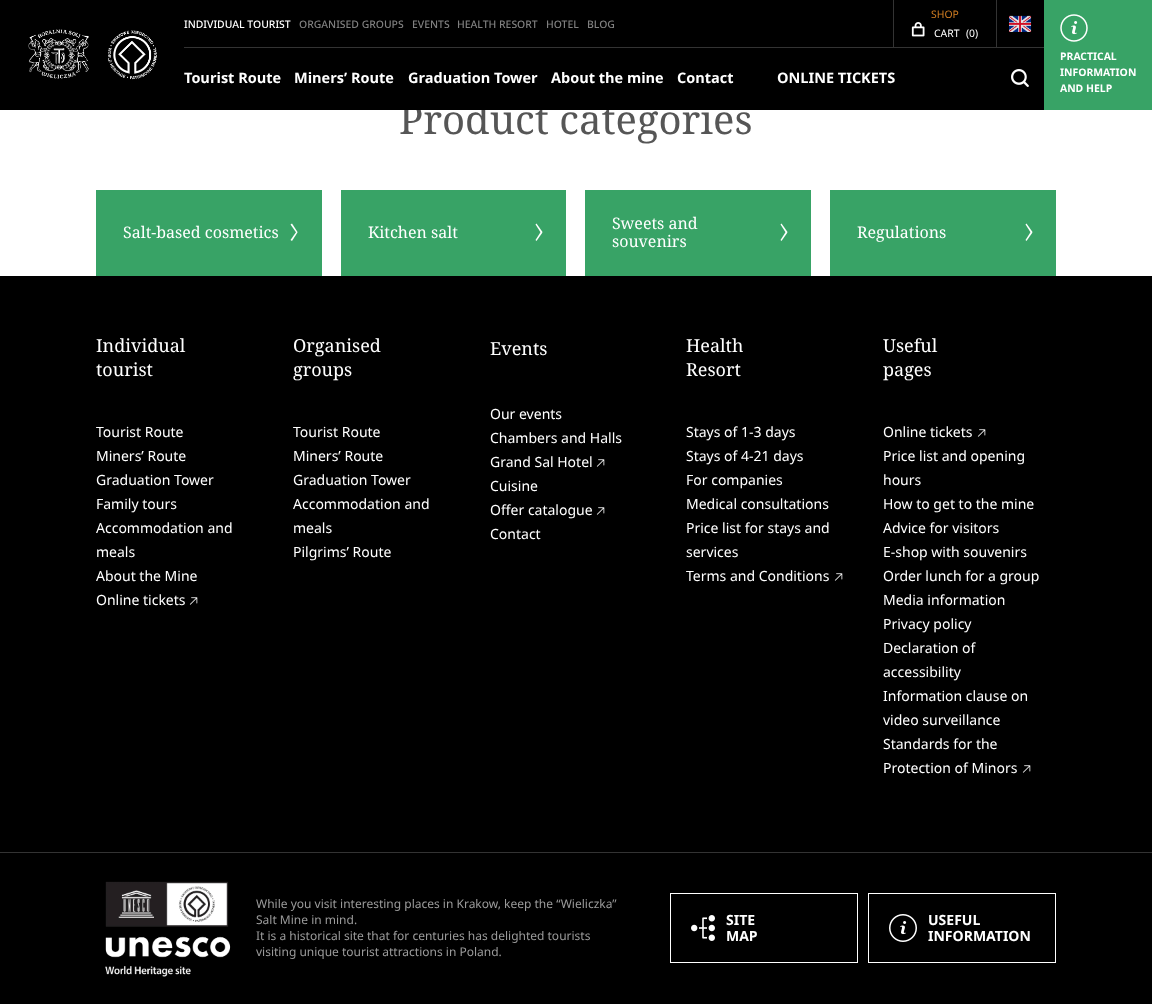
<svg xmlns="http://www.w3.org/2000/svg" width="1152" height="1004">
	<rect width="100%" height="100%" fill="#000000" />
	<rect x="0" y="110" width="1152" height="166" fill="#FFFFFF" />
	<text x="399" y="134" font-family="Noto Serif" font-size="40" fill="#565656">Product categories</text>
	<rect x="400" y="103" width="310" height="7" fill="#000000" />
	<image x="28" y="29" width="129" height="51" href="assets/img1.png" />
	<rect x="184" y="47" width="860" height="1" fill="#333333" />
	<text x="184" y="28" font-family="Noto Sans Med" font-size="10.4" font-weight="500" fill="#FFFFFF">INDIVIDUAL TOURIST</text>
	<g font-family="Noto Sans Med" font-size="10.4" font-weight="500" fill="#808080">
		<text x="299" y="28">ORGANISED GROUPS</text>
		<text x="412" y="28">EVENTS</text>
		<text x="457" y="28">HEALTH RESORT</text>
		<text x="546" y="28">HOTEL</text>
		<text x="587" y="28">BLOG</text>
	</g>
	<rect x="893" y="0" width="1" height="47" fill="#333333" />
	<text x="931" y="18" font-family="Noto Sans" font-size="10.4" fill="#D47F22">SHOP</text>
	<image x="911" y="22" width="14" height="15" href="assets/img2.png" />
	<g font-family="Noto Sans" font-size="10.4" fill="#FFFFFF">
		<text x="934" y="37">CART</text>
		<text x="966" y="37">(0)</text>
	</g>
	<rect x="996" y="0" width="1" height="47" fill="#333333" />
	<image x="1009" y="15" width="23" height="17" href="assets/img3.png" />
	<g font-family="Noto Sans" font-size="14.5" font-weight="700" fill="#FFFFFF">
		<text x="184" y="83">Tourist Route</text>
		<text x="294" y="83">Miners’ Route</text>
		<text x="408" y="83">Graduation Tower</text>
		<text x="551" y="83">About the mine</text>
		<text x="677" y="83">Contact</text>
		<text x="777" y="83">ONLINE TICKETS</text>
	</g>
	<image x="1011" y="69" width="18" height="18" href="assets/img4.png" />
	<rect x="1044" y="0" width="108" height="110" fill="#38A366" />
	<image x="1060" y="14" width="28" height="28" href="assets/img5.png" />
	<g font-family="Noto Sans" font-size="10.4" font-weight="700" fill="#FFFFFF">
		<text x="1060" y="60">PRACTICAL</text>
		<text x="1060" y="76">INFORMATION</text>
		<text x="1060" y="92">AND HELP</text>
	</g>
	<rect x="96" y="190" width="226" height="86" fill="#38A366" />
	<text x="123" y="238" font-family="Noto Serif" font-size="16" fill="#FFFFFF">Salt-based cosmetics</text>
	<path d="M292 223.5L297.5 232L296.5 233L290.5 224.5Z" fill="#FFFFFF" />
	<path d="M290.5 240L296.5 231.5L297.5 232.5L292 241Z" fill="#FFFFFF" />
	<rect x="341" y="190" width="225" height="86" fill="#38A366" />
	<text x="368" y="238" font-family="Noto Serif" font-size="16" fill="#FFFFFF">Kitchen salt</text>
	<path d="M536.5 223.5L542.5 232L541 233L535.5 224.5Z" fill="#FFFFFF" />
	<path d="M535.5 240L541 231.5L542.5 232.5L536.5 241Z" fill="#FFFFFF" />
	<rect x="585" y="190" width="226" height="86" fill="#38A366" />
	<g font-family="Noto Serif" font-size="16" fill="#FFFFFF">
		<text x="612" y="229">Sweets and</text>
		<text x="612" y="247">souvenirs</text>
	</g>
	<path d="M781.5 223.5L787.5 232L786 233L780.5 224.5Z" fill="#FFFFFF" />
	<path d="M780.5 240L786 231.5L787.5 232.5L781.5 241Z" fill="#FFFFFF" />
	<rect x="830" y="190" width="226" height="86" fill="#38A366" />
	<text x="857" y="238" font-family="Noto Serif" font-size="16" fill="#FFFFFF">Regulations</text>
	<path d="M1026.5 223.5L1032.5 232L1031 233L1025.5 224.5Z" fill="#FFFFFF" />
	<path d="M1025.5 240L1031 231.5L1032.5 232.5L1026.5 241Z" fill="#FFFFFF" />
	<g font-family="Noto Serif" font-size="18" fill="#FFFFFF">
		<text x="96" y="352">Individual</text>
		<text x="96" y="376">tourist</text>
	</g>
	<g font-family="Noto Sans" font-size="14" fill="#FFFFFF">
		<text x="96" y="437">Tourist Route</text>
		<text x="96" y="461">Miners’ Route</text>
		<text x="96" y="485">Graduation Tower</text>
		<text x="96" y="509">Family tours</text>
		<text x="96" y="533">Accommodation and</text>
		<text x="96" y="557">meals</text>
		<text x="96" y="581">About the Mine</text>
		<text x="96" y="605">Online tickets</text>
	</g>
	<image x="189" y="597" width="9" height="8" href="assets/img6.png" />
	<g font-family="Noto Serif" font-size="18" fill="#FFFFFF">
		<text x="293" y="352">Organised</text>
		<text x="293" y="376">groups</text>
	</g>
	<g font-family="Noto Sans" font-size="14" fill="#FFFFFF">
		<text x="293" y="437">Tourist Route</text>
		<text x="293" y="461">Miners’ Route</text>
		<text x="293" y="485">Graduation Tower</text>
		<text x="293" y="509">Accommodation and</text>
		<text x="293" y="533">meals</text>
		<text x="293" y="557">Pilgrims’ Route</text>
	</g>
	<text x="490" y="355" font-family="Noto Serif" font-size="18" fill="#FFFFFF">Events</text>
	<g font-family="Noto Sans" font-size="14" fill="#FFFFFF">
		<text x="490" y="419">Our events</text>
		<text x="490" y="443">Chambers and Halls</text>
		<text x="490" y="467">Grand Sal Hotel</text>
	</g>
	<image x="596" y="459" width="9" height="8" href="assets/img6.png" />
	<g font-family="Noto Sans" font-size="14" fill="#FFFFFF">
		<text x="490" y="491">Cuisine</text>
		<text x="490" y="515">Offer catalogue</text>
	</g>
	<image x="596" y="507" width="9" height="8" href="assets/img6.png" />
	<text x="490" y="539" font-family="Noto Sans" font-size="14" fill="#FFFFFF">Contact</text>
	<g font-family="Noto Serif" font-size="18" fill="#FFFFFF">
		<text x="686" y="352">Health</text>
		<text x="686" y="376">Resort</text>
	</g>
	<g font-family="Noto Sans" font-size="14" fill="#FFFFFF">
		<text x="686" y="437">Stays of 1-3 days</text>
		<text x="686" y="461">Stays of 4-21 days</text>
		<text x="686" y="485">For companies</text>
		<text x="686" y="509">Medical consultations</text>
		<text x="686" y="533">Price list for stays and</text>
		<text x="686" y="557">services</text>
		<text x="686" y="581">Terms and Conditions</text>
	</g>
	<image x="834" y="573" width="9" height="8" href="assets/img6.png" />
	<g font-family="Noto Serif" font-size="18" fill="#FFFFFF">
		<text x="883" y="352">Useful</text>
		<text x="883" y="376">pages</text>
	</g>
	<text x="883" y="437" font-family="Noto Sans" font-size="14" fill="#FFFFFF">Online tickets</text>
	<image x="977" y="429" width="9" height="8" href="assets/img6.png" />
	<g font-family="Noto Sans" font-size="14" fill="#FFFFFF">
		<text x="883" y="461">Price list and opening</text>
		<text x="883" y="485">hours</text>
		<text x="883" y="509">How to get to the mine</text>
		<text x="883" y="533">Advice for visitors</text>
		<text x="883" y="557">E-shop with souvenirs</text>
		<text x="883" y="581">Order lunch for a group</text>
		<text x="883" y="605">Media information</text>
		<text x="883" y="629">Privacy policy</text>
		<text x="883" y="653">Declaration of</text>
		<text x="883" y="677">accessibility</text>
		<text x="883" y="701">Information clause on</text>
		<text x="883" y="725">video surveillance</text>
		<text x="883" y="749">Standards for the</text>
		<text x="883" y="773">Protection of Minors</text>
	</g>
	<image x="1022" y="765" width="9" height="8" href="assets/img6.png" />
	<rect x="0" y="852" width="1152" height="1" fill="#333333" />
	<image x="105" y="881" width="126" height="96" href="assets/img7.png" />
	<g font-family="Noto Sans" font-size="12" fill="#9B9B9B">
		<text x="256" y="908">While you visit interesting places in Krakow, keep the “Wieliczka”</text>
		<text x="256" y="924">Salt Mine in mind.</text>
		<text x="256" y="940">It is a historical site that for centuries has delighted tourists</text>
		<text x="256" y="956">visiting unique tourist attractions in Poland.</text>
	</g>
	<rect x="670.5" y="893.5" width="187" height="69" fill="none" stroke="#FFFFFF" />
	<image x="691" y="915" width="24" height="26" href="assets/img8.png" />
	<g font-family="Noto Sans" font-size="14" font-weight="700" fill="#FFFFFF">
		<text x="726" y="925">SITE</text>
		<text x="726" y="941">MAP</text>
	</g>
	<rect x="868.5" y="893.5" width="187" height="69" fill="none" stroke="#FFFFFF" />
	<image x="889" y="914" width="28" height="28" href="assets/img9.png" />
	<g font-family="Noto Sans" font-size="14" font-weight="700" fill="#FFFFFF">
		<text x="928" y="925">USEFUL</text>
		<text x="928" y="941">INFORMATION</text>
	</g>
</svg>
